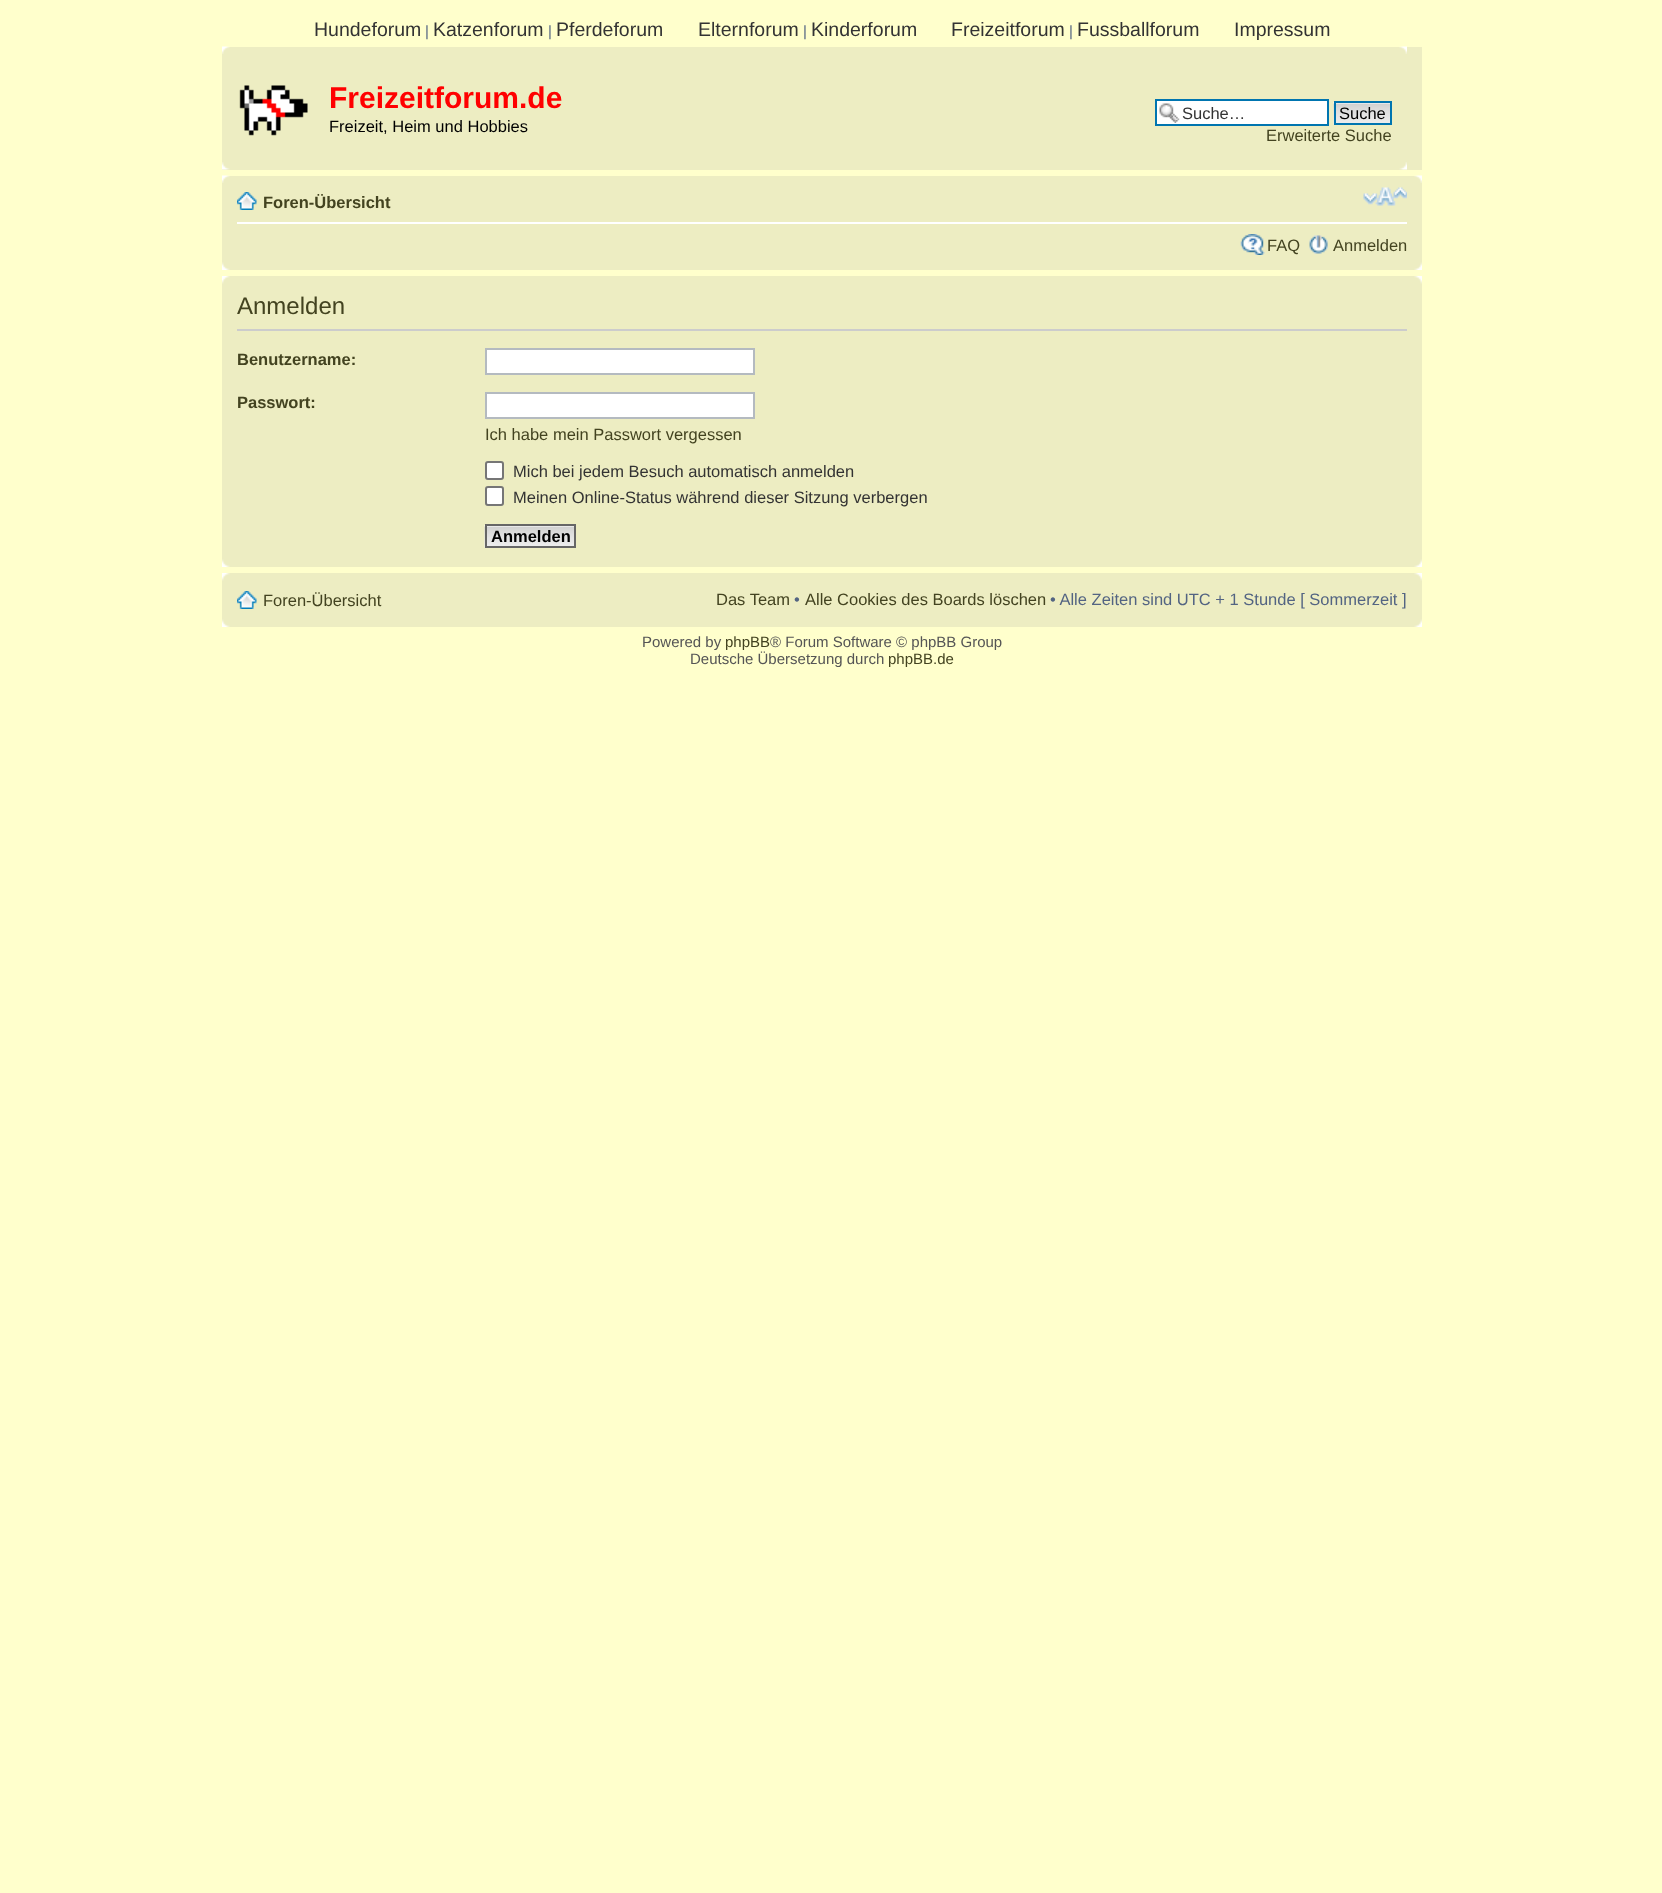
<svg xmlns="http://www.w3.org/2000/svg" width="1662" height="1893">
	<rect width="100%" height="100%" fill="#FFFFCC" />
	<text x="314" y="36" font-family="Liberation Sans" font-size="19.5" fill="#333333">Hundeforum</text>
	<text x="425" y="36" font-family="Liberation Sans" font-size="15" fill="#536482">|</text>
	<text x="433" y="36" font-family="Liberation Sans" font-size="19.5" fill="#333333">Katzenforum</text>
	<text x="548" y="36" font-family="Liberation Sans" font-size="15" fill="#536482">|</text>
	<g font-family="Liberation Sans" font-size="19.5" fill="#333333">
		<text x="556" y="36">Pferdeforum</text>
		<text x="698" y="36">Elternforum</text>
	</g>
	<text x="803" y="36" font-family="Liberation Sans" font-size="15" fill="#536482">|</text>
	<g font-family="Liberation Sans" font-size="19.5" fill="#333333">
		<text x="811" y="36">Kinderforum</text>
		<text x="951" y="36">Freizeitforum</text>
	</g>
	<text x="1069" y="36" font-family="Liberation Sans" font-size="15" fill="#536482">|</text>
	<g font-family="Liberation Sans" font-size="19.5" fill="#333333">
		<text x="1077" y="36">Fussballforum</text>
		<text x="1234" y="36">Impressum</text>
	</g>
	<rect x="222" y="47" width="1200" height="123" fill="#EDEDC2" />
	<image x="222" y="46" width="8" height="8" href="assets/img1.png" />
	<image x="1399" y="46" width="8" height="8" href="assets/img2.png" />
	<image x="239" y="85" width="69" height="51" href="assets/img3.png" />
	<text x="329" y="108" font-family="Liberation Sans" font-size="30" font-weight="700" fill="#FF0000">Freizeitforum.de</text>
	<text x="329" y="132" font-family="Liberation Sans" font-size="16.5" fill="#000000">Freizeit, Heim und Hobbies</text>
	<rect x="1157" y="101" width="170" height="23" fill="#FFFFFF" />
	<image x="1159" y="103" width="21" height="20" href="assets/img4.png" />
	<rect x="1156" y="100" width="172" height="25" fill="none" stroke="#0075B0" stroke-width="2" />
	<text x="1182" y="119" font-family="Liberation Sans" font-size="16.5" fill="#333333">Suche…</text>
	<image x="1333" y="102" width="57" height="23" href="assets/img5.png" />
	<rect x="1335" y="102" width="56" height="22" fill="none" stroke="#0075B0" stroke-width="2" />
	<text x="1339" y="119" font-family="Liberation Sans" font-size="16.5" fill="#000000">Suche</text>
	<text x="1266" y="141" font-family="Liberation Sans" font-size="16.5" fill="#434320">Erweiterte Suche</text>
	<image x="222" y="162" width="8" height="8" href="assets/img6.png" />
	<image x="1399" y="162" width="8" height="8" href="assets/img7.png" />
	<rect x="222" y="176" width="1200" height="94" fill="#EDEDC2" />
	<image x="222" y="175" width="8" height="8" href="assets/img1.png" />
	<image x="1414" y="175" width="8" height="8" href="assets/img2.png" />
	<rect x="237" y="222" width="1170" height="2" fill="#FFFFFF" />
	<image x="237" y="192" width="20" height="18" href="assets/img8.png" />
	<text x="263" y="208" font-family="Liberation Sans" font-size="16.5" font-weight="700" fill="#434320">Foren-Übersicht</text>
	<image x="1363" y="187" width="44" height="19" href="assets/img9.png" />
	<image x="1240" y="234" width="25" height="21" href="assets/img10.png" />
	<text x="1267" y="251" font-family="Liberation Sans" font-size="16.5" fill="#434320">FAQ</text>
	<image x="1309" y="235" width="19" height="19" href="assets/img11.png" />
	<text x="1333" y="251" font-family="Liberation Sans" font-size="16.5" fill="#434320">Anmelden</text>
	<image x="222" y="262" width="8" height="8" href="assets/img12.png" />
	<image x="1414" y="262" width="8" height="8" href="assets/img13.png" />
	<rect x="222" y="276" width="1200" height="291" fill="#EDEDC2" />
	<image x="222" y="276" width="8" height="8" href="assets/img14.png" />
	<image x="1414" y="276" width="8" height="8" href="assets/img15.png" />
	<rect x="237" y="329" width="1170" height="2" fill="#CCCCCC" />
	<text x="237" y="314" font-family="Liberation Sans" font-size="24" fill="#434320">Anmelden</text>
	<text x="237" y="365" font-family="Liberation Sans" font-size="16.5" font-weight="700" fill="#434320">Benutzername:</text>
	<rect x="486" y="349" width="268" height="25" fill="#FFFFFF" stroke="#B4BAC0" stroke-width="2" />
	<text x="237" y="408" font-family="Liberation Sans" font-size="16.5" font-weight="700" fill="#434320">Passwort:</text>
	<rect x="486" y="393" width="268" height="25" fill="#FFFFFF" stroke="#B4BAC0" stroke-width="2" />
	<text x="485" y="440" font-family="Liberation Sans" font-size="16.5" fill="#434320">Ich habe mein Passwort vergessen</text>
	<rect x="486" y="462" width="17" height="17" rx="2" fill="#FFFFFF" stroke="#767676" stroke-width="2" />
	<text x="513" y="477" font-family="Liberation Sans" font-size="16.5" fill="#333333">Mich bei jedem Besuch automatisch anmelden</text>
	<rect x="486" y="487" width="17" height="18" rx="2" fill="#FFFFFF" stroke="#767676" stroke-width="2" />
	<text x="513" y="503" font-family="Liberation Sans" font-size="16.5" fill="#333333">Meinen Online-Status während dieser Sitzung verbergen</text>
	<image x="484" y="525" width="90" height="23" href="assets/img16.png" />
	<rect x="486" y="525" width="89" height="22" fill="none" stroke="#666666" stroke-width="2" />
	<text x="491" y="542" font-family="Liberation Sans" font-size="16.5" font-weight="700" fill="#000000">Anmelden</text>
	<image x="222" y="559" width="8" height="8" href="assets/img12.png" />
	<image x="1414" y="559" width="8" height="8" href="assets/img13.png" />
	<rect x="222" y="573" width="1200" height="54" fill="#EDEDC2" />
	<image x="222" y="573" width="8" height="8" href="assets/img14.png" />
	<image x="1414" y="573" width="8" height="8" href="assets/img15.png" />
	<image x="237" y="591" width="20" height="18" href="assets/img8.png" />
	<g font-family="Liberation Sans" font-size="16.5" fill="#434320">
		<text x="263" y="606">Foren-Übersicht</text>
		<text x="716" y="605">Das Team</text>
	</g>
	<text x="794" y="605" font-family="Liberation Sans" font-size="16.5" fill="#536482">•</text>
	<text x="805" y="605" font-family="Liberation Sans" font-size="16.5" fill="#434320">Alle Cookies des Boards löschen</text>
	<text x="1050" y="605" font-family="Liberation Sans" font-size="16.5" fill="#536482">• Alle Zeiten sind UTC + 1 Stunde [ Sommerzeit ]</text>
	<image x="222" y="619" width="8" height="8" href="assets/img12.png" />
	<image x="1414" y="619" width="8" height="8" href="assets/img13.png" />
	<text x="642" y="647" font-family="Liberation Sans" font-size="15" fill="#555555">Powered by</text>
	<text x="725" y="647" font-family="Liberation Sans" font-size="15" fill="#434320">phpBB</text>
	<g font-family="Liberation Sans" font-size="15" fill="#555555">
		<text x="770" y="647">® Forum Software © phpBB Group</text>
		<text x="690" y="664">Deutsche Übersetzung durch</text>
	</g>
	<text x="888" y="664" font-family="Liberation Sans" font-size="15" fill="#434320">phpBB.de</text>
</svg>
